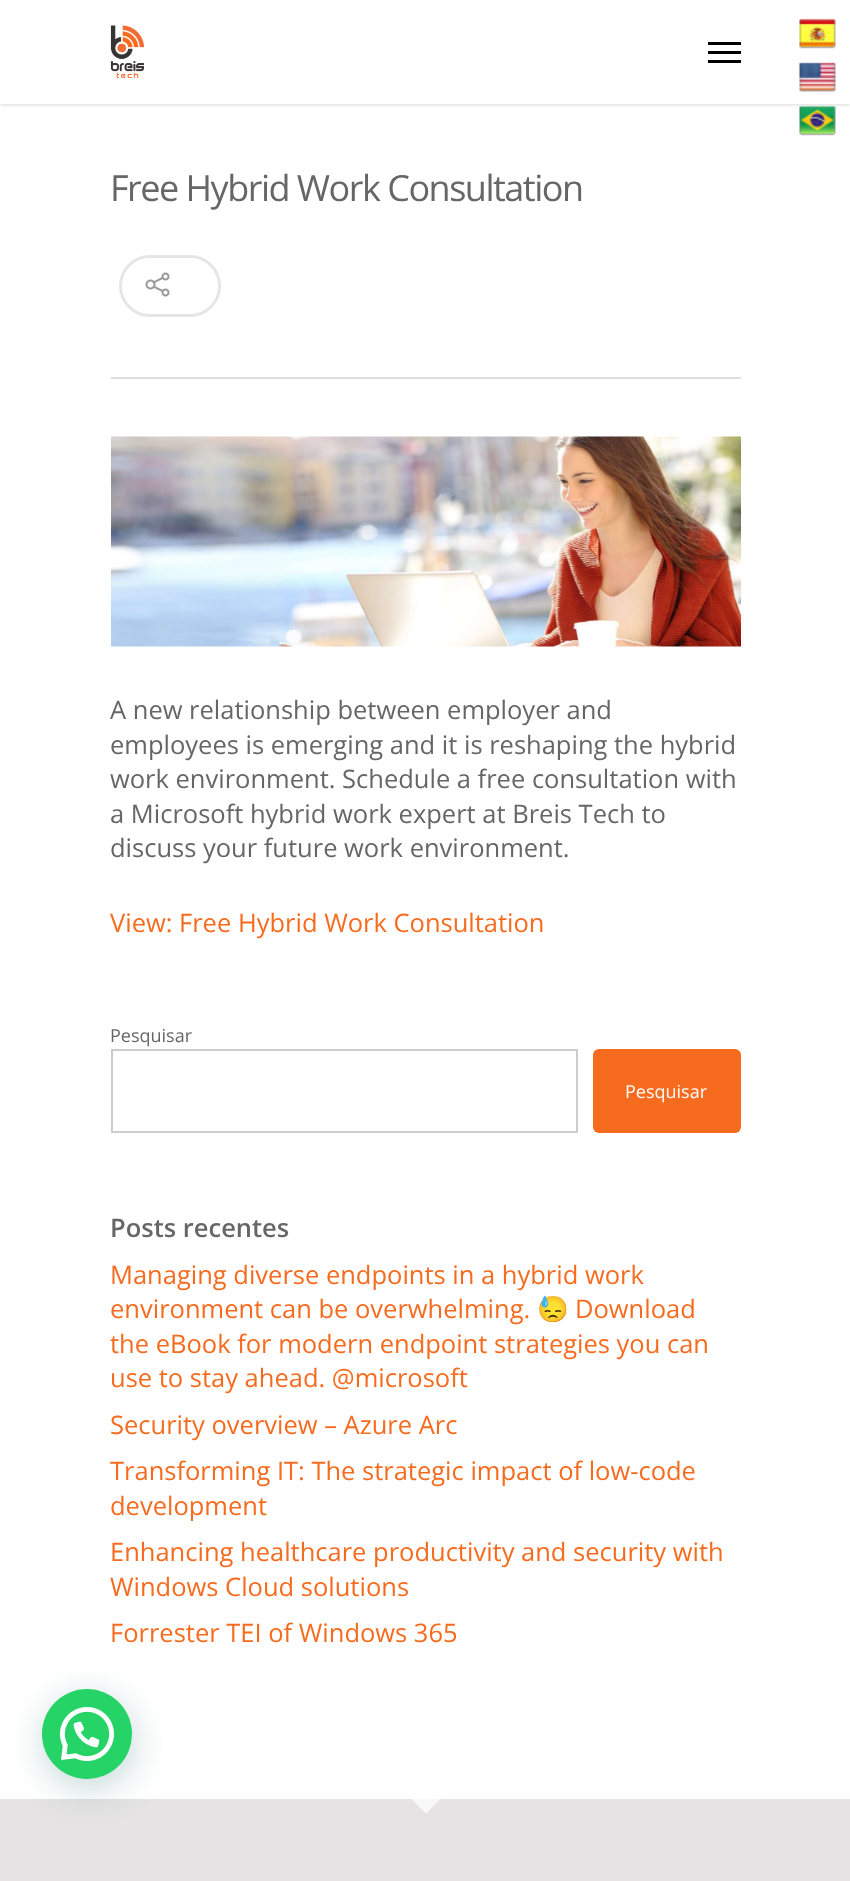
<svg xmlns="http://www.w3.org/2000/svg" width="850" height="1881">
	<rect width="100%" height="100%" fill="#E5E3E3" />
	<path d="M411 1798.5H441L426 1813.5Z" fill="#F8F8F8" />
	<rect x="0" y="104" width="850" height="1695" fill="#FFFFFF" />
	<rect x="0" y="0" width="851" height="104" fill="#000000" fill-opacity="0.22" filter="blur(2px)" />
	<rect x="0" y="0" width="850" height="104" fill="#FFFFFF" />
	<image x="110" y="25" width="34" height="53" href="assets/img1.png" />
	<rect x="708" y="42" width="33" height="3" fill="#000000" />
	<rect x="708" y="60" width="33" height="3" fill="#000000" />
	<rect x="708" y="51" width="33" height="3" fill="#000000" />
	<image x="799" y="18" width="37" height="31" href="assets/img2.png" />
	<image x="799" y="62" width="37" height="30" href="assets/img3.png" />
	<image x="799" y="105" width="37" height="31" href="assets/img4.png" />
	<rect x="44" y="1698" width="90" height="90" rx="45" fill="#075E54" fill-opacity="0.24" filter="blur(18px)" />
	<circle cx="87" cy="1734" r="45" fill="#25D366" />
	<image x="60" y="1707" width="54" height="54" href="assets/img5.png" />
	<rect x="111" y="377" width="630" height="2" fill="#DDDDDD" />
	<text x="110" y="201" font-family="Open Sans" font-size="36" letter-spacing="-1.5" fill="#666666">Free Hybrid Work Consultation</text>
	<rect x="120.5" y="256.5" width="99" height="59" rx="29.5" fill="none" stroke="#E6E6E6" stroke-width="3" />
	<image x="145" y="272" width="25" height="25" href="assets/img6.png" />
	<image x="111" y="436" width="630" height="211" href="assets/img7.png" />
	<g font-family="Open Sans" font-size="25.5" fill="#666666">
		<text x="110" y="719">A new relationship between employer and</text>
		<text x="110" y="754">employees is emerging and it is reshaping the hybrid</text>
		<text x="110" y="788">work environment. Schedule a free consultation with</text>
		<text x="110" y="823">a Microsoft hybrid work expert at Breis Tech to</text>
		<text x="110" y="857">discuss your future work environment.</text>
	</g>
	<text x="110" y="932" font-family="Open Sans" font-size="25.5" fill="#F76B1E">View: Free Hybrid Work Consultation</text>
	<text x="110" y="1042" font-family="Open Sans" font-size="18" fill="#666666">Pesquisar</text>
	<rect x="112" y="1050" width="465" height="82" fill="none" stroke="#CCCCCC" stroke-width="2" />
	<rect x="593" y="1049" width="148" height="84" rx="6" fill="#F76B1E" />
	<text x="625" y="1098" font-family="Open Sans" font-size="18" fill="#FFFFFF">Pesquisar</text>
	<text x="110" y="1237" font-family="Open Sans" font-size="25.5" font-weight="600" fill="#666666">Posts recentes</text>
	<g font-family="Open Sans" font-size="25.5" fill="#F76B1E">
		<text x="110" y="1284">Managing diverse endpoints in a hybrid work</text>
		<text x="110" y="1318">environment can be overwhelming.</text>
	</g>
	<text x="537" y="1318" font-family="Noto Color Emoji" font-size="25.5" fill="#F76B1E">😓</text>
	<g font-family="Open Sans" font-size="25.5" fill="#F76B1E">
		<text x="575" y="1318">Download</text>
		<text x="110" y="1353">the eBook for modern endpoint strategies you can</text>
		<text x="110" y="1387">use to stay ahead. @microsoft</text>
		<text x="110" y="1434">Security overview – Azure Arc</text>
		<text x="110" y="1480">Transforming IT: The strategic impact of low-code</text>
		<text x="110" y="1515">development</text>
		<text x="110" y="1561">Enhancing healthcare productivity and security with</text>
		<text x="110" y="1596">Windows Cloud solutions</text>
		<text x="110" y="1642">Forrester TEI of Windows 365</text>
	</g>
</svg>
